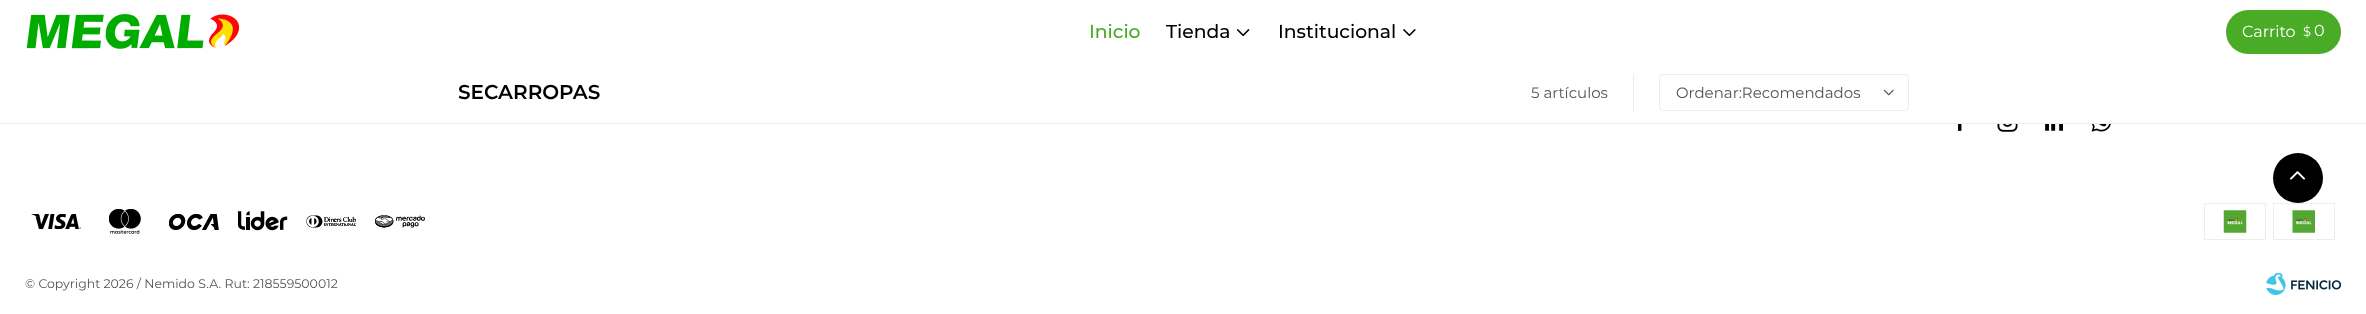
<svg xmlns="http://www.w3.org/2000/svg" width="2366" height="314">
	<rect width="100%" height="100%" fill="#FFFFFF" />
	<image x="26" y="14" width="214" height="35" href="assets/img1.png" />
	<text x="1089" y="38" font-family="Montserrat" font-size="18.75" font-weight="500" fill="#4AAB27">Inicio</text>
	<text x="1166" y="38" font-family="Montserrat" font-size="18.75" font-weight="500" fill="#000000">Tienda</text>
	<image x="1236" y="29" width="14" height="7" href="assets/img2.png" />
	<text x="1278" y="38" font-family="Montserrat" font-size="18.75" font-weight="500" fill="#000000">Institucional</text>
	<image x="1403" y="29" width="13" height="7" href="assets/img3.png" />
	<rect x="2226" y="10" width="115" height="44" rx="22" fill="#4AAB27" />
	<text x="2242" y="37" font-family="Montserrat" font-size="16" fill="#FFFFFF">Carrito</text>
	<text x="2303" y="36" font-family="Montserrat" font-size="13" fill="#FFFFFF">$</text>
	<text x="2314" y="36" font-family="Montserrat" font-size="16" fill="#FFFFFF">0</text>
	<text x="458" y="99" font-family="Montserrat" font-size="20" font-weight="600" fill="#000000">SECARROPAS</text>
	<text x="1531" y="98" font-family="Montserrat" font-size="15" fill="#555555">5 artículos</text>
	<rect x="1633" y="74" width="1" height="37" fill="#EDEDED" />
	<image x="1883" y="89" width="11" height="7" href="assets/img4.png" />
	<rect x="1659.5" y="74.5" width="249" height="36" rx="3.5" fill="none" stroke="#EDEDED" />
	<text x="1676" y="98" font-family="Montserrat" font-size="15" fill="#555555">Ordenar:Recomendados</text>
	<rect x="0" y="123" width="2366" height="1" fill="#EDEDED" />
	<circle cx="2298" cy="178" r="25" fill="#000000" />
	<image x="2290" y="171" width="15" height="9" href="assets/img5.png" />
	<image x="1958" y="124" width="4" height="7" href="assets/img6.png" />
	<image x="1997" y="124" width="21" height="8" href="assets/img7.png" />
	<image x="2045" y="124" width="18" height="7" href="assets/img8.png" />
	<image x="2091" y="124" width="20" height="8" href="assets/img9.png" />
	<image x="31" y="214" width="50" height="15" href="assets/img10.png" />
	<image x="109" y="209" width="32" height="25" href="assets/img11.png" />
	<image x="169" y="214" width="50" height="16" href="assets/img12.png" />
	<image x="238" y="211" width="50" height="20" href="assets/img13.png" />
	<image x="306" y="215" width="50" height="13" href="assets/img14.png" />
	<image x="375" y="215" width="50" height="13" href="assets/img15.png" />
	<rect x="2204.5" y="203.5" width="61" height="36" fill="none" stroke="#EDEDED" />
	<image x="2223" y="210" width="24" height="23" href="assets/img16.png" />
	<rect x="2273.5" y="203.5" width="61" height="36" fill="none" stroke="#EDEDED" />
	<image x="2292" y="210" width="23" height="23" href="assets/img17.png" />
	<text x="25" y="288" font-family="Montserrat" font-size="12.5" fill="#555555">© Copyright 2026 / Nemido S.A. Rut: 218559500012</text>
	<image x="2266" y="273" width="75" height="22" href="assets/img18.png" />
</svg>
